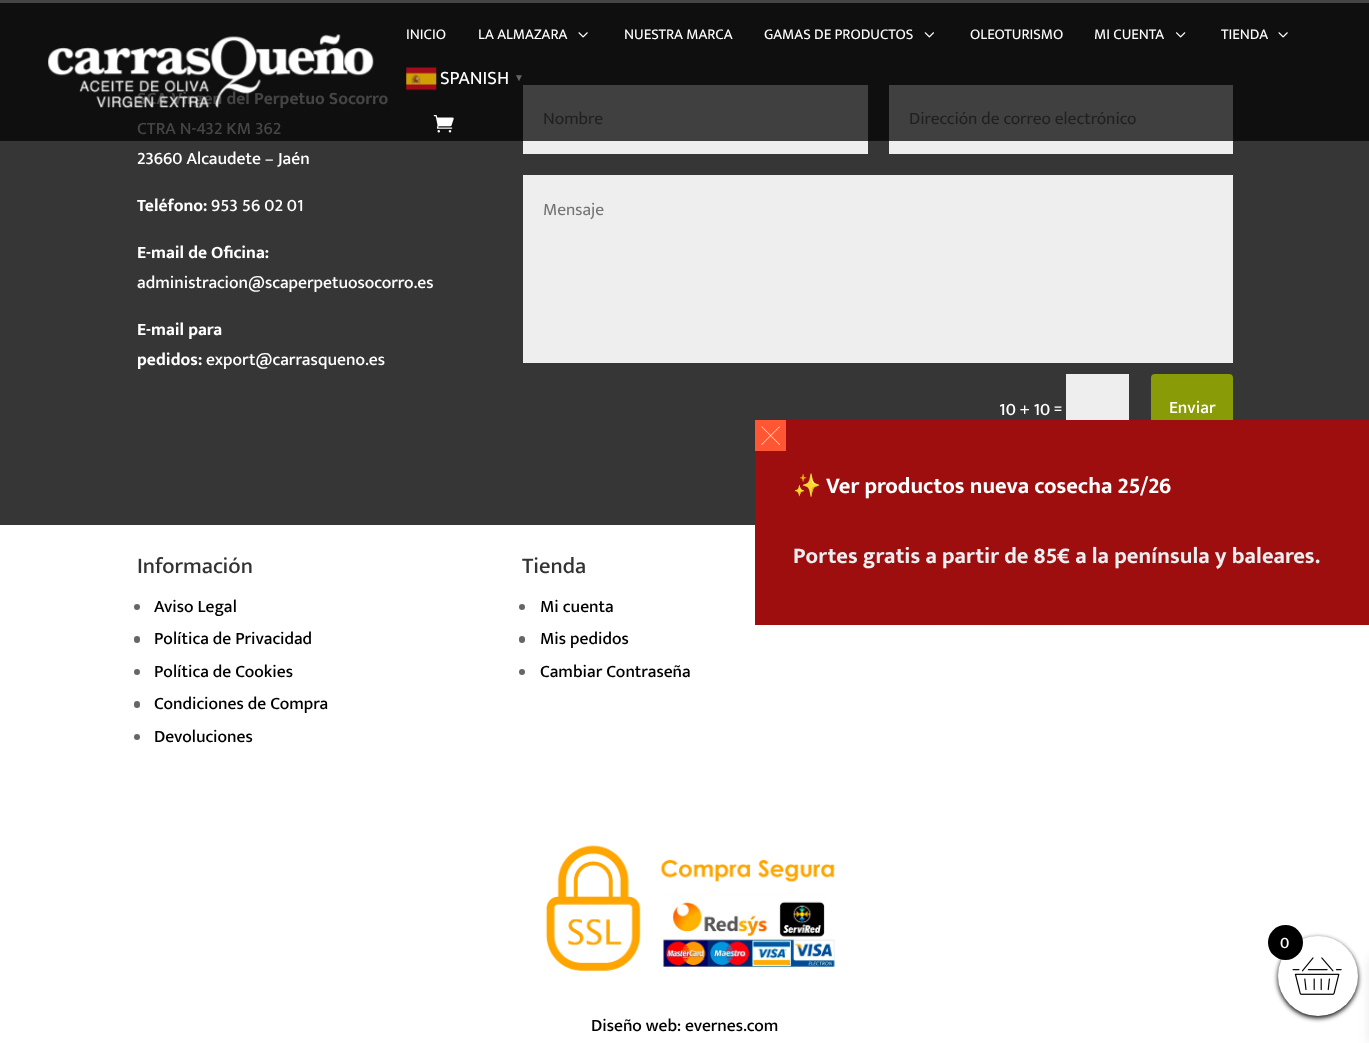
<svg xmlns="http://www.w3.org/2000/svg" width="1369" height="1043">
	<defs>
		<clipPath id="clip1"><rect x="793" y="458" width="540" height="130" /></clipPath>
	</defs>
	<rect width="100%" height="100%" fill="#FFFFFF" />
	<rect x="0" y="0" width="1369" height="3" fill="#454545" />
	<rect x="0" y="3" width="1369" height="138" fill="#0F0F0F" />
	<text x="137" y="104" font-family="Mukta" font-size="17.5" font-weight="700" fill="#454545">SCA Virgen del Perpetuo Socorro</text>
	<image x="48" y="34" width="326" height="75" href="assets/img1.png" />
	<g font-family="Mukta" font-size="15" fill="#FFFFFF">
		<text x="406" y="39">INICIO</text>
		<text x="478" y="39">LA ALMAZARA</text>
	</g>
	<image x="578" y="32" width="10" height="6" href="assets/img2.png" />
	<g font-family="Mukta" font-size="15" fill="#FFFFFF">
		<text x="624" y="39">NUESTRA MARCA</text>
		<text x="764" y="39">GAMAS DE PRODUCTOS</text>
	</g>
	<image x="924" y="32" width="10" height="6" href="assets/img3.png" />
	<g font-family="Mukta" font-size="15" fill="#FFFFFF">
		<text x="970" y="39">OLEOTURISMO</text>
		<text x="1094" y="39">MI CUENTA</text>
	</g>
	<image x="1176" y="32" width="10" height="6" href="assets/img4.png" />
	<text x="1221" y="39" font-family="Mukta" font-size="15" fill="#FFFFFF">TIENDA</text>
	<image x="1278" y="32" width="10" height="6" href="assets/img2.png" />
	<image x="406" y="67" width="31" height="24" href="assets/img5.png" />
	<text x="440" y="84" font-family="Mukta" font-size="19" fill="#FFFFFF">SPANISH</text>
	<text x="514" y="81" font-family="Liberation Sans" font-size="10" font-weight="700" fill="#666666">▼</text>
	<image x="433" y="115" width="21" height="18" href="assets/img6.png" />
	<rect x="0" y="141" width="1369" height="384" fill="#363636" />
	<text x="137" y="134" font-family="Mukta" font-size="17.5" font-weight="500" fill="#454545">CTRA N-432 KM 362</text>
	<text x="137" y="164" font-family="Mukta" font-size="17.5" font-weight="500" fill="#FFFFFF">23660 Alcaudete – Jaén</text>
	<text x="137" y="211" font-family="Mukta" font-size="17.5" font-weight="700" fill="#FFFFFF">Teléfono:</text>
	<text x="211" y="211" font-family="Mukta" font-size="17.5" font-weight="500" fill="#FFFFFF">953 56 02 01</text>
	<text x="137" y="258" font-family="Mukta" font-size="17.5" font-weight="700" fill="#FFFFFF">E-mail de Oficina:</text>
	<text x="137" y="288" font-family="Mukta" font-size="17.5" font-weight="500" fill="#FFFFFF">administracion@scaperpetuosocorro.es</text>
	<g font-family="Mukta" font-size="17.5" font-weight="700" fill="#FFFFFF">
		<text x="137" y="335">E-mail para</text>
		<text x="137" y="365">pedidos:</text>
	</g>
	<text x="206" y="365" font-family="Mukta" font-size="17.5" font-weight="500" fill="#FFFFFF">export@carrasqueno.es</text>
	<rect x="523" y="141" width="345" height="13" fill="#EEEEEE" />
	<rect x="523" y="85" width="345" height="56" fill="#404040" />
	<text x="543" y="124" font-family="Mukta" font-size="17.5" fill="#202020">Nombre</text>
	<rect x="889" y="141" width="344" height="13" fill="#EEEEEE" />
	<rect x="889" y="85" width="344" height="56" fill="#404040" />
	<text x="909" y="124" font-family="Mukta" font-size="17.5" fill="#202020">Dirección de correo electrónico</text>
	<rect x="523" y="175" width="710" height="188" fill="#EEEEEE" />
	<text x="543" y="215" font-family="Mukta" font-size="17.5" fill="#757575">Mensaje</text>
	<g font-family="Mukta" font-size="17.5" font-weight="500" fill="#FFFFFF">
		<text x="999" y="415">10 + 10</text>
		<text x="1054" y="414">=</text>
	</g>
	<rect x="1066" y="374" width="63" height="46" fill="#EEEEEE" />
	<rect x="1151" y="374" width="82" height="69" rx="4" fill="#8A9B08" />
	<text x="1169" y="413" font-family="Mukta" font-size="17.5" font-weight="500" fill="#FFFFFF">Enviar</text>
	<text x="137" y="573" font-family="Mukta" font-size="22.5" font-weight="500" fill="#333333">Información</text>
	<circle cx="137" cy="607" r="3" fill="#666666" />
	<text x="154" y="612" font-family="Mukta" font-size="17.5" font-weight="500" fill="#000000">Aviso Legal</text>
	<rect x="134" y="636" width="6" height="7" rx="3" fill="#666666" />
	<text x="154" y="644" font-family="Mukta" font-size="17.5" font-weight="500" fill="#000000">Política de Privacidad</text>
	<circle cx="137" cy="672" r="3" fill="#666666" />
	<text x="154" y="677" font-family="Mukta" font-size="17.5" font-weight="500" fill="#000000">Política de Cookies</text>
	<rect x="134" y="701" width="6" height="7" rx="3" fill="#666666" />
	<text x="154" y="709" font-family="Mukta" font-size="17.5" font-weight="500" fill="#000000">Condiciones de Compra</text>
	<circle cx="137" cy="737" r="3" fill="#666666" />
	<text x="154" y="742" font-family="Mukta" font-size="17.5" font-weight="500" fill="#000000">Devoluciones</text>
	<text x="522" y="573" font-family="Mukta" font-size="22.5" font-weight="500" fill="#333333">Tienda</text>
	<circle cx="522" cy="607" r="3" fill="#666666" />
	<text x="540" y="612" font-family="Mukta" font-size="17.5" font-weight="500" fill="#000000">Mi cuenta</text>
	<rect x="519" y="636" width="6" height="7" rx="3" fill="#666666" />
	<text x="540" y="644" font-family="Mukta" font-size="17.5" font-weight="500" fill="#000000">Mis pedidos</text>
	<circle cx="522" cy="672" r="3" fill="#666666" />
	<text x="540" y="677" font-family="Mukta" font-size="17.5" font-weight="500" fill="#000000">Cambiar Contraseña</text>
	<image x="935" y="625" width="263" height="3" href="assets/img7.png" />
	<image x="545" y="845" width="290" height="126" href="assets/img8.png" />
	<text x="591" y="1031" font-family="Mukta" font-size="17.5" font-weight="500" fill="#000000">Diseño web: evernes.com</text>
	<rect x="755" y="420" width="614" height="205" fill="#9E0E0E" />
	<rect x="755" y="420" width="31" height="31" fill="#FF5733" />
	<image x="761" y="426" width="19" height="19" href="assets/img9.png" />
	<g clip-path="url(#clip1)">
		<text x="793" y="493" font-family="Noto Color Emoji" font-size="22.5" font-weight="700" fill="#FFFFFF">✨</text>
	</g>
	<text x="826" y="493" font-family="Mukta" font-size="22.5" font-weight="700" fill="#FFFFFF">Ver productos nueva cosecha 25/26</text>
	<text x="793" y="563" font-family="Mukta" font-size="22.5" font-weight="700" fill="#ECEFF1">Portes gratis a partir de 85€ a la península y baleares.</text>
	<rect x="1278" y="938" width="80" height="80" rx="40" fill="#000000" filter="blur(2.5px)" />
	<rect x="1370" y="958" width="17" height="85" fill="#000000" fill-opacity="0.1" filter="blur(6px)" />
	<circle cx="1318" cy="976" r="40" fill="#FFFFFF" />
	<image x="1292" y="957" width="50" height="38" href="assets/img10.png" />
	<circle cx="1285.5" cy="942.5" r="17.5" fill="#000000" />
	<text x="1280" y="948" font-family="Mukta" font-size="16" font-weight="500" fill="#FFFFFF">0</text>
</svg>
